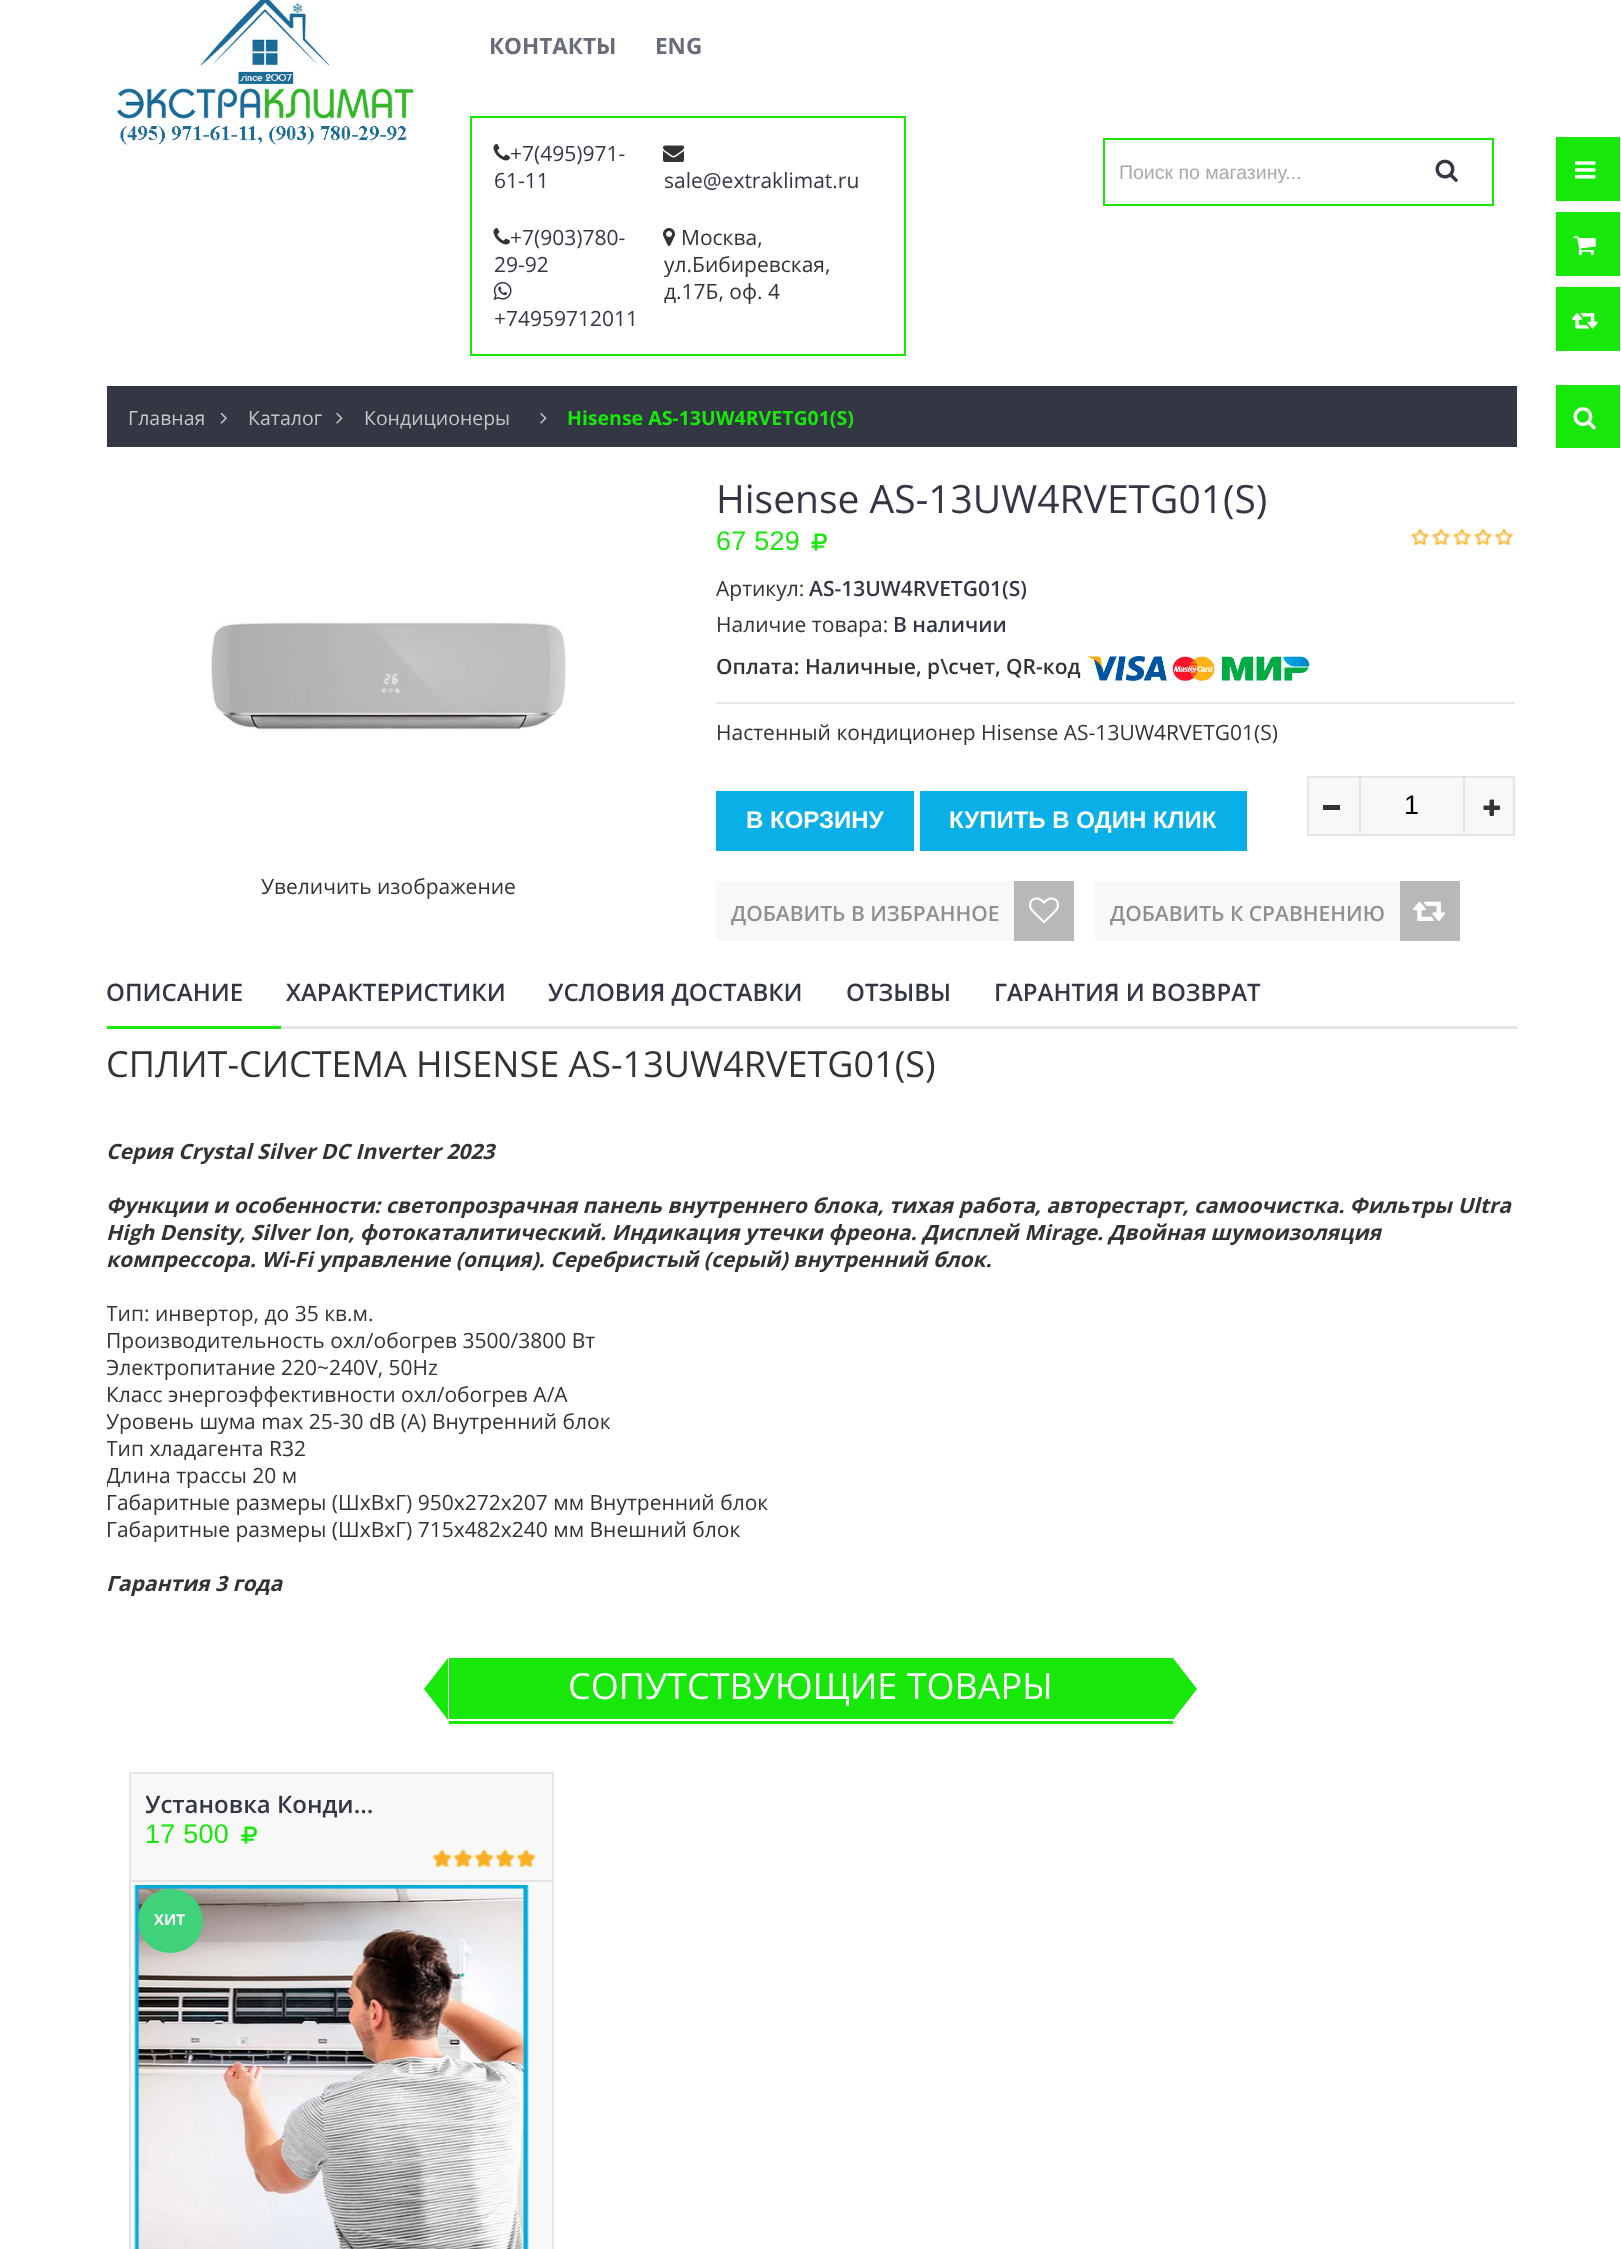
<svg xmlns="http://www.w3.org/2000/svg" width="1621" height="2249">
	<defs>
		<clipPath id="clip1"><rect x="107" y="1029" width="1410" height="584" /></clipPath>
		<clipPath id="clip2"><rect x="146" y="1788" width="240" height="33" /></clipPath>
	</defs>
	<rect width="100%" height="100%" fill="#FFFFFF" />
	<image x="117" y="0" width="297" height="145" href="assets/img1.png" />
	<g font-family="Open Sans" font-size="22.5" font-weight="700" fill="#696C79">
		<text x="489" y="54">КОНТАКТЫ</text>
		<text x="655" y="54">ENG</text>
	</g>
	<rect x="471" y="117" width="434" height="238" fill="none" stroke="#17E709" stroke-width="2" />
	<image x="493" y="144" width="17" height="17" href="assets/img2.png" />
	<g font-family="Open Sans" font-size="21" fill="#333744">
		<text x="510" y="161">+7(495)971-</text>
		<text x="494" y="188">61-11</text>
	</g>
	<image x="493" y="228" width="17" height="17" href="assets/img2.png" />
	<g font-family="Open Sans" font-size="21" fill="#333744">
		<text x="510" y="245">+7(903)780-</text>
		<text x="494" y="272">29-92</text>
	</g>
	<image x="493" y="281" width="19" height="19" href="assets/img3.png" />
	<text x="494" y="326" font-family="Open Sans" font-size="21" fill="#333744">+74959712011</text>
	<image x="663" y="145" width="21" height="17" href="assets/img4.png" />
	<text x="664" y="188" font-family="Open Sans" font-size="21" fill="#333744">sale@extraklimat.ru</text>
	<image x="663" y="228" width="12" height="18" href="assets/img5.png" />
	<g font-family="Open Sans" font-size="21" fill="#333333">
		<text x="681" y="245">Москва,</text>
		<text x="664" y="272">ул.Бибиревская,</text>
		<text x="664" y="299">д.17Б, оф. 4</text>
	</g>
	<rect x="1104" y="139" width="389" height="66" fill="none" stroke="#17E709" stroke-width="2" />
	<text x="1119" y="179" font-family="Liberation Sans" font-size="19.5" fill="#A9A9A9">Поиск по магазину...</text>
	<image x="1435" y="159" width="23" height="23" href="assets/img6.png" />
	<rect x="1556" y="137" width="64" height="64" fill="#17E709" />
	<image x="1575" y="161" width="21" height="18" href="assets/img7.png" />
	<rect x="1556" y="212" width="64" height="64" fill="#17E709" />
	<image x="1573" y="236" width="23" height="20" href="assets/img8.png" />
	<rect x="1556" y="287" width="64" height="64" fill="#17E709" />
	<image x="1572" y="313" width="26" height="16" href="assets/img9.png" />
	<rect x="1556" y="385" width="64" height="63" fill="#17E709" />
	<image x="1573" y="407" width="23" height="23" href="assets/img10.png" />
	<rect x="107" y="386" width="1410" height="61" fill="#333744" />
	<text x="128" y="425" font-family="Open Sans" font-size="19.5" fill="#C5C5C5">Главная</text>
	<image x="220" y="412" width="7" height="12" href="assets/img11.png" />
	<text x="248" y="425" font-family="Open Sans" font-size="19.5" fill="#C5C5C5">Каталог</text>
	<image x="336" y="412" width="7" height="12" href="assets/img12.png" />
	<text x="364" y="425" font-family="Open Sans" font-size="19.5" fill="#C5C5C5">Кондиционеры</text>
	<image x="540" y="412" width="7" height="12" href="assets/img12.png" />
	<text x="567" y="425" font-family="Open Sans" font-size="19.5" font-weight="700" fill="#17E709">Hisense AS-13UW4RVETG01(S)</text>
	<image x="211" y="621" width="355" height="109" href="assets/img13.png" />
	<text x="261" y="894" font-family="Open Sans" font-size="21" fill="#333333">Увеличить изображение</text>
	<text x="716" y="513" font-family="Open Sans" font-size="39" fill="#333744">Hisense AS-13UW4RVETG01(S)</text>
	<text x="716" y="550" font-family="Liberation Sans" font-size="27" letter-spacing="0.25" fill="#17E709">67 529</text>
	<image x="811" y="533" width="16" height="18" href="assets/img14.png" />
	<image x="1411" y="527" width="103" height="19" href="assets/img15.png" />
	<text x="716" y="596" font-family="Open Sans" font-size="21" fill="#333333">Артикул:</text>
	<text x="809" y="596" font-family="Open Sans" font-size="21" font-weight="600" fill="#333744">AS-13UW4RVETG01(S)</text>
	<text x="716" y="632" font-family="Open Sans" font-size="21" fill="#333333">Наличие товара:</text>
	<text x="893" y="632" font-family="Open Sans" font-size="21" font-weight="600" fill="#333744">В наличии</text>
	<text x="716" y="674" font-family="Open Sans" font-size="21" font-weight="600" fill="#333333">Оплата: Наличные, р\счет, QR-код</text>
	<image x="1087" y="655" width="223" height="27" href="assets/img16.png" />
	<rect x="716" y="702" width="799" height="2" fill="#E5E5E5" />
	<text x="716" y="740" font-family="Open Sans" font-size="21" fill="#333333">Настенный кондиционер Hisense AS-13UW4RVETG01(S)</text>
	<rect x="1308" y="777" width="206" height="58" fill="#F8F8F8" stroke="#E5E5E5" stroke-width="2" />
	<rect x="1323" y="805" width="17" height="5" fill="#333333" />
	<rect x="1463" y="777" width="2" height="57" fill="#E5E5E5" />
	<rect x="1359" y="777" width="2" height="57" fill="#E5E5E5" />
	<text x="1404" y="814" font-family="Liberation Sans" font-size="27" fill="#000000">1</text>
	<image x="1483" y="799" width="17" height="17" href="assets/img17.png" />
	<rect x="716" y="791" width="198" height="60" fill="#09AFE7" />
	<text x="746" y="828" font-family="Liberation Sans" font-size="24" font-weight="700" fill="#FFFFFF">В КОРЗИНУ</text>
	<rect x="920" y="791" width="327" height="60" fill="#09AFE7" />
	<text x="949" y="828" font-family="Liberation Sans" font-size="24" font-weight="700" fill="#FFFFFF">КУПИТЬ В ОДИН КЛИК</text>
	<rect x="716" y="881" width="298" height="60" fill="#F8F8F8" />
	<text x="731" y="921" font-family="Open Sans" font-size="21" font-weight="600" fill="#909090">ДОБАВИТЬ В ИЗБРАННОЕ</text>
	<rect x="1014" y="881" width="60" height="60" fill="#B8B8B8" />
	<image x="1029" y="897" width="30" height="26" href="assets/img18.png" />
	<rect x="1095" y="881" width="305" height="60" fill="#F8F8F8" />
	<text x="1110" y="921" font-family="Open Sans" font-size="21" font-weight="600" fill="#909090">ДОБАВИТЬ К СРАВНЕНИЮ</text>
	<rect x="1400" y="881" width="60" height="60" fill="#B8B8B8" />
	<image x="1413" y="901" width="33" height="20" href="assets/img19.png" />
	<text x="106" y="1001" font-family="Open Sans" font-size="24" font-weight="600" fill="#333744">ОПИСАНИЕ</text>
	<rect x="107" y="1026" width="174" height="3" fill="#17E709" />
	<g font-family="Open Sans" font-size="24" font-weight="600" fill="#333744">
		<text x="286" y="1001">ХАРАКТЕРИСТИКИ</text>
		<text x="548" y="1001">УСЛОВИЯ ДОСТАВКИ</text>
		<text x="846" y="1001">ОТЗЫВЫ</text>
		<text x="994" y="1001">ГАРАНТИЯ И ВОЗВРАТ</text>
	</g>
	<rect x="281" y="1026" width="1236" height="3" fill="#E5E5E5" />
	<text x="106" y="1077" font-family="Open Sans" font-size="36" fill="#333333">СПЛИТ-СИСТЕМА HISENSE AS-13UW4RVETG01(S)</text>
	<g font-family="Open Sans" font-size="21" font-weight="700" font-style="italic" fill="#333333">
		<text x="106" y="1159">Серия Crystal Silver DC Inverter 2023</text>
		<text x="106" y="1213">Функции и особенности: светопрозрачная панель внутреннего блока, тихая работа, авторестарт, самоочистка. Фильтры Ultra</text>
		<text x="106" y="1240">High Density, Silver Ion, фотокаталитический. Индикация утечки фреона. Дисплей Mirage. Двойная шумоизоляция</text>
		<text x="106" y="1267">компрессора. Wi-Fi управление (опция). Серебристый (серый) внутренний блок.</text>
	</g>
	<g clip-path="url(#clip1)">
		<text x="106" y="1321" font-family="Open Sans" font-size="21" fill="#333333">Тип: инвертор, до 35 кв.м.</text>
	</g>
	<text x="106" y="1348" font-family="Open Sans" font-size="21" fill="#333333">Производительность охл/обогрев 3500/3800 Вт</text>
	<g clip-path="url(#clip1)">
		<text x="106" y="1375" font-family="Open Sans" font-size="21" fill="#333333">Электропитание 220~240V, 50Hz</text>
	</g>
	<text x="106" y="1402" font-family="Open Sans" font-size="21" fill="#333333">Класс энергоэффективности охл/обогрев А/А</text>
	<g clip-path="url(#clip1)">
		<g font-family="Open Sans" font-size="21" fill="#333333">
			<text x="106" y="1429">Уровень шума max 25-30 dB (А) Внутренний блок</text>
			<text x="106" y="1456">Тип хладагента R32</text>
			<text x="106" y="1483">Длина трассы 20 м</text>
		</g>
	</g>
	<g font-family="Open Sans" font-size="21" fill="#333333">
		<text x="106" y="1510">Габаритные размеры (ШxВxГ) 950х272х207 мм Внутренний блок</text>
		<text x="106" y="1537">Габаритные размеры (ШxВxГ) 715х482х240 мм Внешний блок</text>
	</g>
	<text x="106" y="1591" font-family="Open Sans" font-size="21" font-weight="700" font-style="italic" fill="#333333">Гарантия 3 года</text>
	<rect x="449" y="1721" width="724" height="3" fill="#17E709" />
	<path d="M448 1658V1720L424 1689Z" fill="#17E709" />
	<rect x="449" y="1658" width="724" height="61" fill="#17E709" />
	<text x="568" y="1699" font-family="Open Sans" font-size="36" fill="#FFFFFF">СОПУТСТВУЮЩИЕ ТОВАРЫ</text>
	<path d="M1173 1720V1658L1197 1689Z" fill="#17E709" />
	<rect x="130" y="1773" width="423" height="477" fill="#F8F8F8" stroke="#E5E5E5" stroke-width="2" />
	<rect x="131" y="1880" width="421" height="2" fill="#E5E5E5" />
	<g clip-path="url(#clip2)">
		<text x="145" y="1813" font-family="Open Sans" font-size="24" font-weight="600" fill="#333744">Установка Конди…</text>
	</g>
	<text x="145" y="1843" font-family="Liberation Sans" font-size="27" letter-spacing="0.25" fill="#17E709">17 500</text>
	<image x="241" y="1826" width="16" height="18" href="assets/img20.png" />
	<image x="432" y="1849" width="104" height="19" href="assets/img21.png" />
	<image x="432" y="1849" width="104" height="18" href="assets/img22.png" />
	<image x="134" y="1885" width="395" height="364" href="assets/img23.png" />
	<rect x="138" y="1889" width="65" height="64" rx="32" fill="#3FD27A" />
	<text x="154" y="1925" font-family="Open Sans" font-size="15" font-weight="700" fill="#FFFFFF">ХИТ</text>
</svg>
